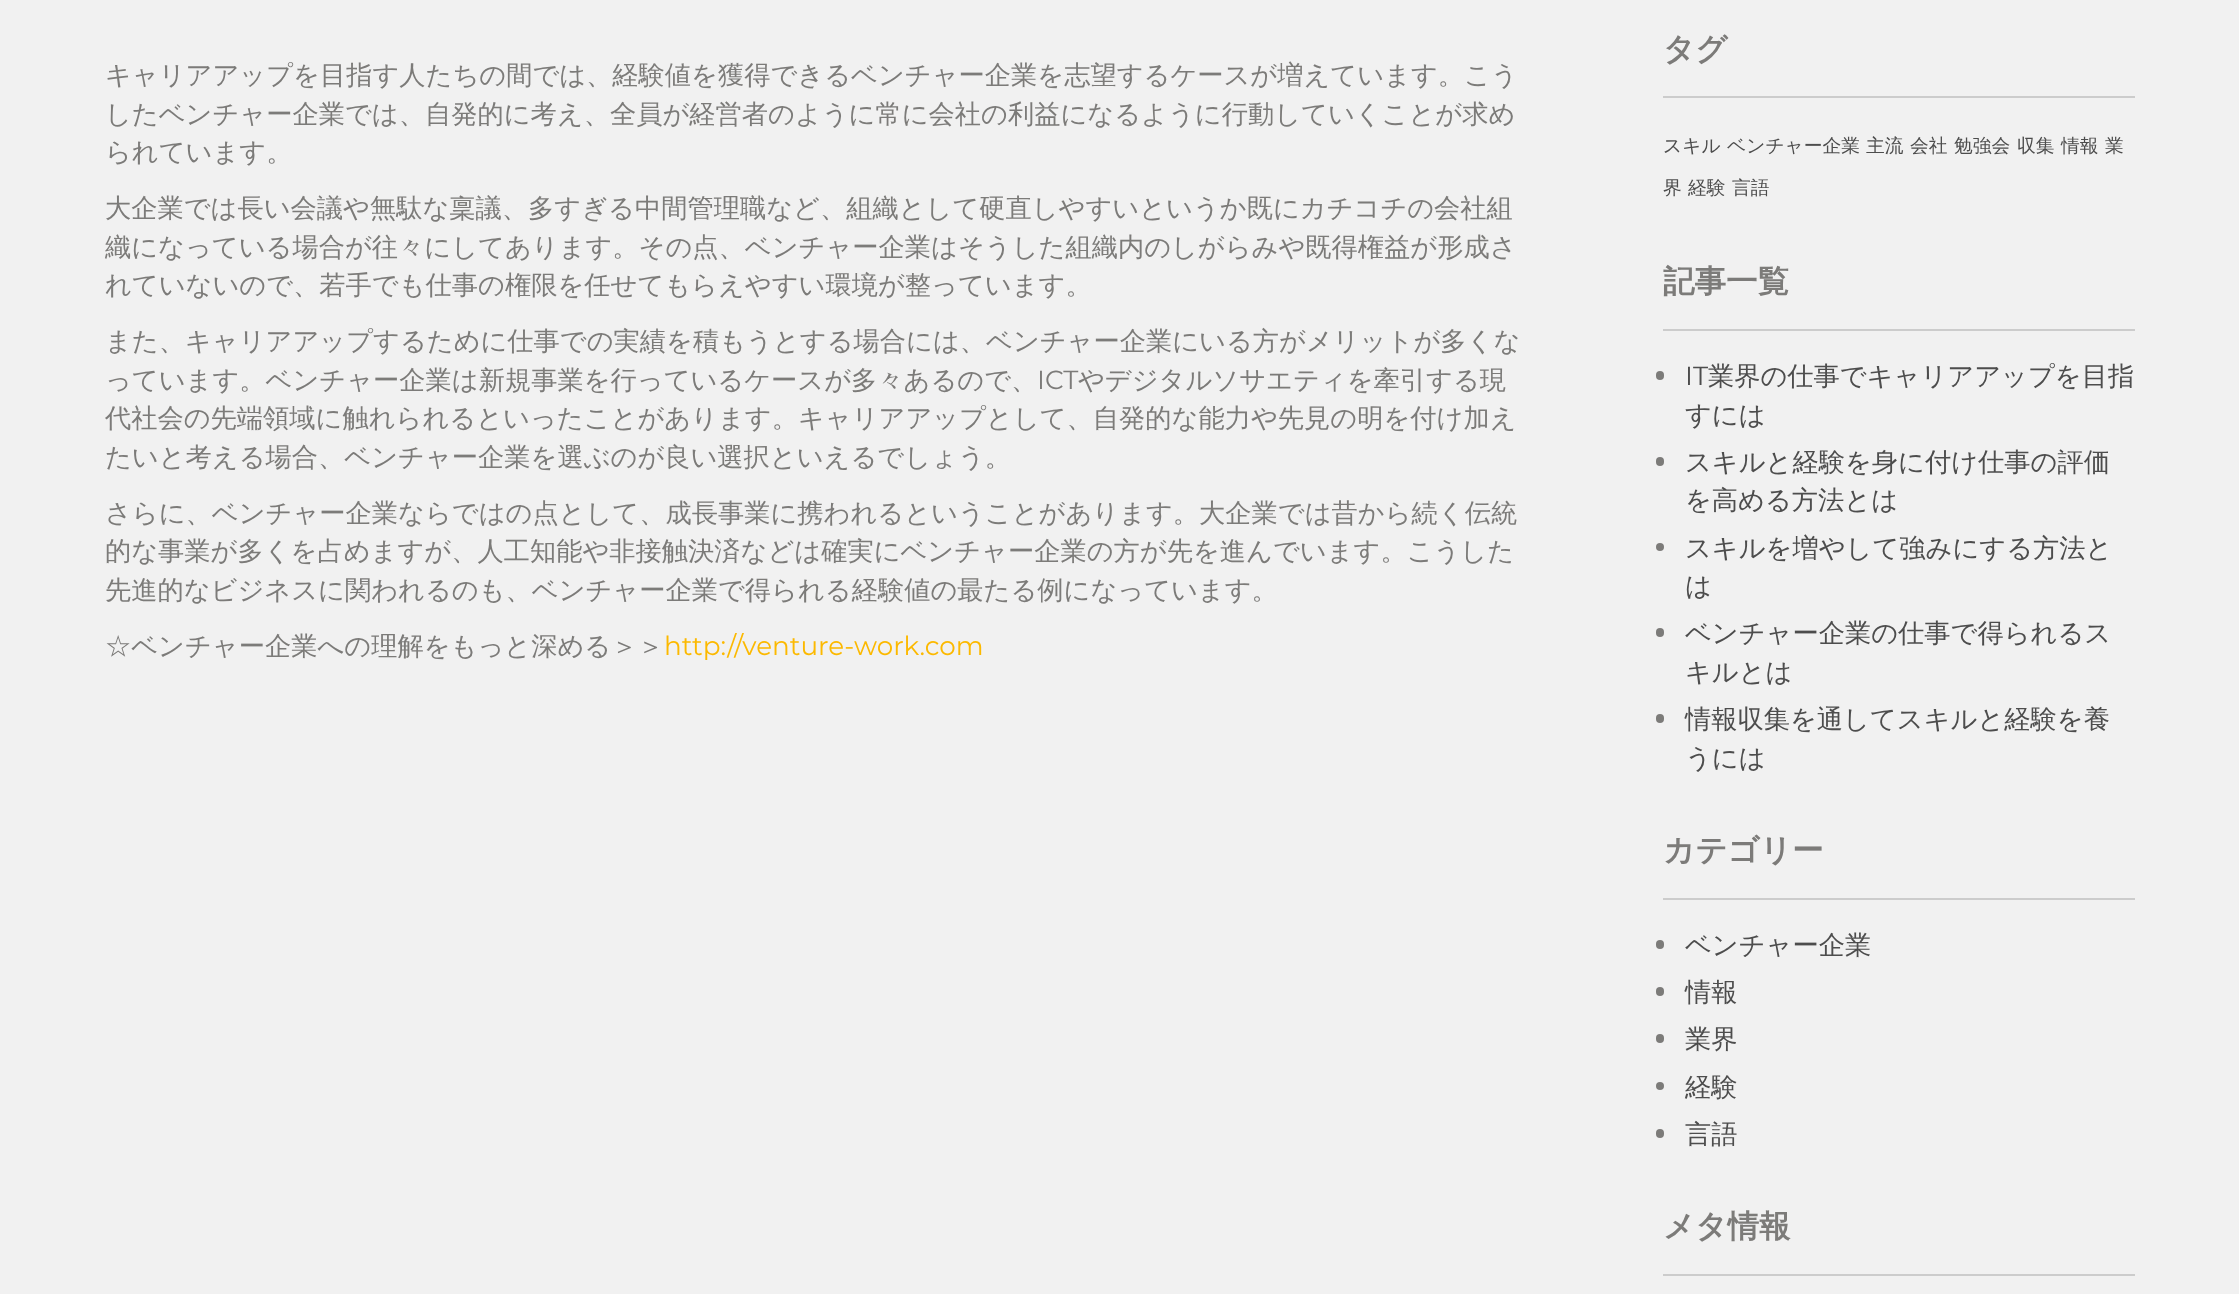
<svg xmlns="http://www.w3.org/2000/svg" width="2239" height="1294">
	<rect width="100%" height="100%" fill="#F1F1F1" />
	<g font-family="WenQuanYi Zen Hei" font-size="26.25" font-weight="500" fill="#7C7B79">
		<text x="105" y="84">キャリアアップを目指す人たちの間では、経験値を獲得できるベンチャー企業を志望するケースが増えています。こう</text>
		<text x="105" y="123">したベンチャー企業では、自発的に考え、全員が経営者のように常に会社の利益になるように行動していくことが求め</text>
		<text x="105" y="161">られています。</text>
		<text x="105" y="217">大企業では長い会議や無駄な稟議、多すぎる中間管理職など、組織として硬直しやすいというか既にカチコチの会社組</text>
		<text x="105" y="256">織になっている場合が往々にしてあります。その点、ベンチャー企業はそうした組織内のしがらみや既得権益が形成さ</text>
		<text x="105" y="294">れていないので、若手でも仕事の権限を任せてもらえやすい環境が整っています。</text>
		<text x="105" y="350">また、キャリアアップするために仕事での実績を積もうとする場合には、ベンチャー企業にいる方がメリットが多くな</text>
		<text x="105" y="389">っています。ベンチャー企業は新規事業を行っているケースが多々あるので、</text>
	</g>
	<text x="1037" y="389" font-family="Montserrat" font-size="26.25" fill="#7C7B79">ICT</text>
	<g font-family="WenQuanYi Zen Hei" font-size="26.25" font-weight="500" fill="#7C7B79">
		<text x="1078" y="389">やデジタルソサエティを牽引する現</text>
		<text x="105" y="427">代社会の先端領域に触れられるといったことがあります。キャリアアップとして、自発的な能力や先見の明を付け加え</text>
		<text x="105" y="466">たいと考える場合、ベンチャー企業を選ぶのが良い選択といえるでしょう。</text>
		<text x="105" y="522">さらに、ベンチャー企業ならではの点として、成長事業に携われるということがあります。大企業では昔から続く伝統</text>
		<text x="105" y="560">的な事業が多くを占めますが、人工知能や非接触決済などは確実にベンチャー企業の方が先を進んでいます。こうした</text>
		<text x="105" y="599">先進的なビジネスに関われるのも、ベンチャー企業で得られる経験値の最たる例になっています。</text>
		<text x="105" y="655">☆ベンチャー企業への理解をもっと深める＞＞</text>
	</g>
	<text x="664" y="655" font-family="Montserrat" font-size="26.25" fill="#FCB900">http://venture-work.com</text>
	<rect x="1663" y="96" width="472" height="2" fill="#CCCCCC" />
	<text x="1663" y="60" font-family="WenQuanYi Zen Hei" font-size="31.5" font-weight="700" fill="#7C7B79">タグ</text>
	<g font-family="WenQuanYi Zen Hei" font-size="18.75" font-weight="500" fill="#4D4D4D">
		<text x="1663" y="152">スキル</text>
		<text x="1727" y="152">ベンチャー企業</text>
		<text x="1866" y="152">主流</text>
		<text x="1910" y="152">会社</text>
		<text x="1954" y="152">勉強会</text>
		<text x="2017" y="152">収集</text>
		<text x="2061" y="152">情報</text>
		<text x="2105" y="152">業</text>
		<text x="1663" y="194">界</text>
		<text x="1688" y="194">経験</text>
		<text x="1732" y="194">言語</text>
	</g>
	<rect x="1663" y="329" width="472" height="2" fill="#CCCCCC" />
	<text x="1663" y="292" font-family="WenQuanYi Zen Hei" font-size="31.5" font-weight="700" fill="#7C7B79">記事一覧</text>
	<rect x="1656" y="371" width="8" height="9" rx="4" fill="#7C7B79" />
	<text x="1685" y="385" font-family="Montserrat" font-size="26.25" fill="#4D4D4D">IT</text>
	<g font-family="WenQuanYi Zen Hei" font-size="26.25" font-weight="500" fill="#4D4D4D">
		<text x="1708" y="385">業界の仕事でキャリアアップを目指</text>
		<text x="1685" y="424">すには</text>
	</g>
	<rect x="1656" y="457" width="8" height="9" rx="4" fill="#7C7B79" />
	<g font-family="WenQuanYi Zen Hei" font-size="26.25" font-weight="500" fill="#4D4D4D">
		<text x="1685" y="471">スキルと経験を身に付け仕事の評価</text>
		<text x="1685" y="509">を高める方法とは</text>
	</g>
	<circle cx="1660" cy="547" r="4" fill="#7C7B79" />
	<g font-family="WenQuanYi Zen Hei" font-size="26.25" font-weight="500" fill="#4D4D4D">
		<text x="1685" y="557">スキルを増やして強みにする方法と</text>
		<text x="1685" y="595">は</text>
	</g>
	<rect x="1656" y="628" width="8" height="9" rx="4" fill="#7C7B79" />
	<g font-family="WenQuanYi Zen Hei" font-size="26.25" font-weight="500" fill="#4D4D4D">
		<text x="1685" y="642">ベンチャー企業の仕事で得られるス</text>
		<text x="1685" y="681">キルとは</text>
	</g>
	<rect x="1656" y="714" width="8" height="9" rx="4" fill="#7C7B79" />
	<g font-family="WenQuanYi Zen Hei" font-size="26.25" font-weight="500" fill="#4D4D4D">
		<text x="1685" y="728">情報収集を通してスキルと経験を養</text>
		<text x="1685" y="767">うには</text>
	</g>
	<rect x="1663" y="898" width="472" height="2" fill="#CCCCCC" />
	<text x="1663" y="861" font-family="WenQuanYi Zen Hei" font-size="31.5" font-weight="700" fill="#7C7B79">カテゴリー</text>
	<rect x="1656" y="940" width="8" height="9" rx="4" fill="#7C7B79" />
	<text x="1685" y="954" font-family="WenQuanYi Zen Hei" font-size="26.25" font-weight="500" fill="#4D4D4D">ベンチャー企業</text>
	<rect x="1656" y="987" width="8" height="9" rx="4" fill="#7C7B79" />
	<text x="1685" y="1001" font-family="WenQuanYi Zen Hei" font-size="26.25" font-weight="500" fill="#4D4D4D">情報</text>
	<rect x="1656" y="1034" width="8" height="9" rx="4" fill="#7C7B79" />
	<text x="1685" y="1048" font-family="WenQuanYi Zen Hei" font-size="26.25" font-weight="500" fill="#4D4D4D">業界</text>
	<circle cx="1660" cy="1086" r="4" fill="#7C7B79" />
	<text x="1685" y="1096" font-family="WenQuanYi Zen Hei" font-size="26.25" font-weight="500" fill="#4D4D4D">経験</text>
	<rect x="1656" y="1129" width="8" height="9" rx="4" fill="#7C7B79" />
	<text x="1685" y="1143" font-family="WenQuanYi Zen Hei" font-size="26.25" font-weight="500" fill="#4D4D4D">言語</text>
	<rect x="1663" y="1274" width="472" height="2" fill="#CCCCCC" />
	<text x="1663" y="1237" font-family="WenQuanYi Zen Hei" font-size="31.5" font-weight="700" fill="#7C7B79">メタ情報</text>
</svg>
